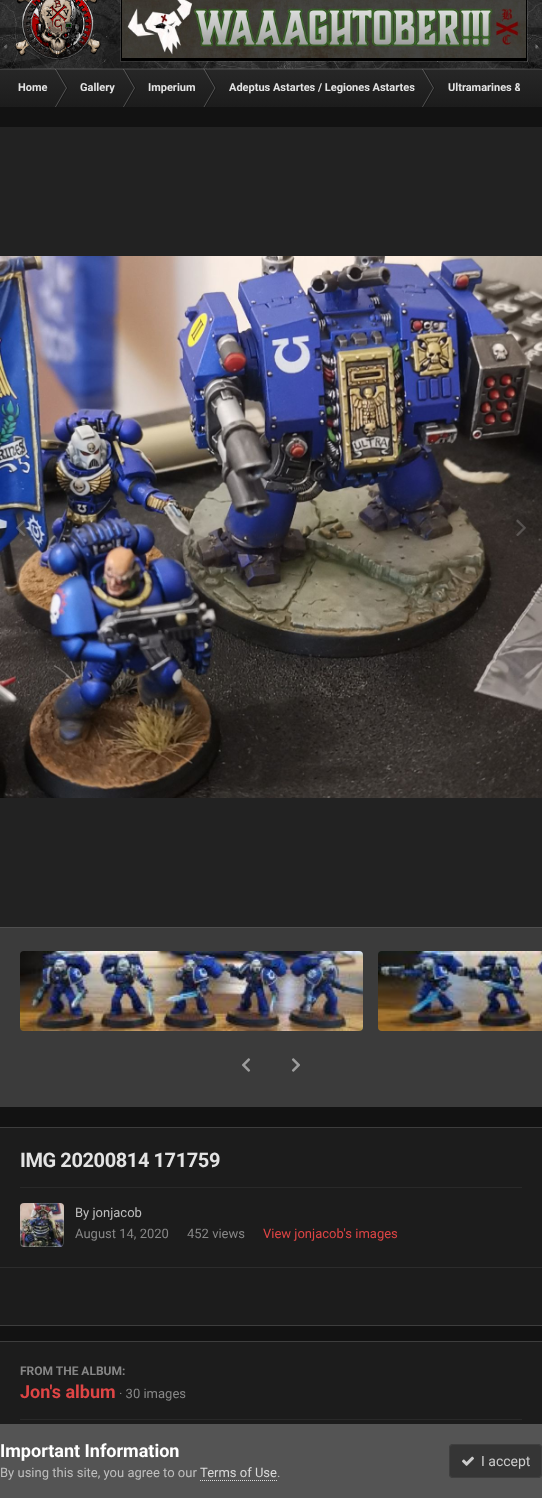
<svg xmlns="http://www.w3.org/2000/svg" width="542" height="1498">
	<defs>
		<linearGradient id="g1" gradientUnits="userSpaceOnUse" x1="271" y1="69" x2="271" y2="107"><stop offset="0" stop-color="#272727" /><stop offset="1" stop-color="#1C1C1C" /></linearGradient>
		<clipPath id="clip1"><rect x="0" y="69" width="520" height="38" /></clipPath>
	</defs>
	<rect width="100%" height="100%" fill="#FFFFFF" />
	<image x="0" y="0" width="542" height="69" href="assets/img1.png" />
	<image x="15" y="0" width="86" height="60" href="assets/img2.png" />
	<rect x="120.5" y="-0.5" width="407" height="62" fill="none" stroke="#FFFFFF" stroke-opacity="0.1" />
	<rect x="121" y="0" width="406" height="61" fill="#000000" />
	<image x="122" y="0" width="404" height="58" href="assets/img3.png" />
	<rect x="-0.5" y="68.5" width="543" height="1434" rx="3.5" fill="none" stroke="#FFFFFF" stroke-opacity="0.1" />
	<rect x="0" y="107" width="542" height="1234" fill="#121212" />
	<rect x="0" y="70" width="542" height="37" fill="url(#g1)" />
	<rect x="0" y="69" width="542" height="1" fill="#3D3D3D" />
	<text x="18" y="91" font-family="Roboto" font-size="11" font-weight="700" fill="#E3E3E3">Home</text>
	<path d="M55 69H56L67 88H66Z" fill="#FFFFFF" fill-opacity="0.25" />
	<path d="M56 69H57L68 88H67Z" fill="#000000" fill-opacity="0.3" />
	<path d="M55 107H56L67 88H66Z" fill="#FFFFFF" fill-opacity="0.25" />
	<path d="M56 107H57L68 88H67Z" fill="#000000" fill-opacity="0.3" />
	<text x="80" y="91" font-family="Roboto" font-size="11" font-weight="700" fill="#E3E3E3">Gallery</text>
	<path d="M123 69H124L135 88H134Z" fill="#FFFFFF" fill-opacity="0.25" />
	<path d="M124 69H125L136 88H135Z" fill="#000000" fill-opacity="0.3" />
	<path d="M123 107H124L135 88H134Z" fill="#FFFFFF" fill-opacity="0.25" />
	<path d="M124 107H125L136 88H135Z" fill="#000000" fill-opacity="0.3" />
	<text x="148" y="91" font-family="Roboto" font-size="11" font-weight="700" fill="#E3E3E3">Imperium</text>
	<path d="M203.5 69H204.5L215.5 88H214.5Z" fill="#FFFFFF" fill-opacity="0.25" />
	<path d="M204.5 69H205.5L216.5 88H215.5Z" fill="#000000" fill-opacity="0.3" />
	<path d="M203.5 107H204.5L215.5 88H214.5Z" fill="#FFFFFF" fill-opacity="0.25" />
	<path d="M204.5 107H205.5L216.5 88H215.5Z" fill="#000000" fill-opacity="0.3" />
	<text x="229" y="91" font-family="Roboto" font-size="11" font-weight="700" fill="#E3E3E3">Adeptus Astartes / Legiones Astartes</text>
	<path d="M422 69H423L434 88H433Z" fill="#FFFFFF" fill-opacity="0.25" />
	<path d="M423 69H424L435 88H434Z" fill="#000000" fill-opacity="0.3" />
	<path d="M422 107H423L434 88H433Z" fill="#FFFFFF" fill-opacity="0.25" />
	<path d="M423 107H424L435 88H434Z" fill="#000000" fill-opacity="0.3" />
	<g clip-path="url(#clip1)">
		<text x="448" y="91" font-family="Roboto" font-size="11" font-weight="700" fill="#E3E3E3">Ultramarines &amp;</text>
	</g>
	<rect x="0" y="127" width="542" height="800" fill="#222222" />
	<image x="0" y="256" width="542" height="542" href="assets/img4.png" />
	<image x="16" y="519" width="10" height="17" href="assets/img5.png" />
	<image x="516" y="519" width="10" height="17" href="assets/img6.png" />
	<rect x="0" y="928" width="542" height="179" fill="#3B3B3B" />
	<rect x="0" y="927" width="542" height="1" fill="#4F4F4F" />
	<image x="20" y="951" width="343" height="80" href="assets/img7.png" />
	<image x="378" y="951" width="164" height="80" href="assets/img8.png" />
	<image x="242" y="1058" width="9" height="14" href="assets/img9.png" />
	<image x="291" y="1058" width="9" height="14" href="assets/img10.png" />
	<rect x="0" y="1128" width="542" height="197" fill="#1C1C1C" />
	<rect x="0" y="1127" width="542" height="1" fill="#3D3D3D" />
	<rect x="0" y="1325" width="542" height="1" fill="#3D3D3D" />
	<text x="20" y="1167" font-family="Roboto" font-size="20" font-weight="700" letter-spacing="-0.4" fill="#E3E3E3">IMG 20200814 171759</text>
	<rect x="20" y="1187" width="502" height="1" fill="#292929" />
	<image x="20" y="1203" width="44" height="44" href="assets/img11.png" />
	<rect x="20.5" y="1203.5" width="43" height="43" rx="3.5" fill="none" stroke="#BFBFBF" stroke-opacity="0.3" />
	<text x="75" y="1217" font-family="Roboto" font-size="13" fill="#BFBFBF">By jonjacob</text>
	<g font-family="Roboto" font-size="13" fill="#878787">
		<text x="75" y="1238">August 14, 2020</text>
		<text x="187" y="1238">452 views</text>
	</g>
	<text x="263" y="1238" font-family="Roboto" font-size="13" fill="#DE4545">View jonjacob's images</text>
	<rect x="0" y="1267" width="542" height="1" fill="#2C2C2C" />
	<rect x="0" y="1342" width="542" height="82" fill="#1C1C1C" />
	<rect x="0" y="1341" width="542" height="1" fill="#3D3D3D" />
	<text x="20" y="1375" font-family="Roboto" font-size="12" font-weight="700" fill="#878787">FROM THE ALBUM:</text>
	<text x="20" y="1398" font-family="Roboto" font-size="18" font-weight="700" fill="#DE4545">Jon's album</text>
	<text x="119" y="1398" font-family="Roboto" font-size="13" fill="#878787">· 30 images</text>
	<rect x="20" y="1419" width="502" height="1" fill="#292929" />
	<rect x="0" y="1424" width="542" height="74" fill="#545454" />
	<text x="0" y="1457" font-family="Roboto" font-size="18" font-weight="700" fill="#FFFFFF">Important Information</text>
	<text x="0" y="1477" font-family="Roboto" font-size="13" fill="#BFBFBF">By using this site, you agree to our</text>
	<text x="200" y="1477" font-family="Roboto" font-size="13" fill="#DADADA">Terms of Use</text>
	<path d="M200 1480.5H277" fill="none" stroke="#DADADA" stroke-dasharray="1 1" />
	<text x="277" y="1477" font-family="Roboto" font-size="13" fill="#BFBFBF">.</text>
	<rect x="449" y="1444" width="93" height="34" rx="4" fill="#353535" />
	<rect x="449.5" y="1444.5" width="92" height="33" rx="3.5" fill="none" stroke="#CCCCCC" stroke-opacity="0.07" />
	<image x="462" y="1456" width="12" height="10" href="assets/img12.png" />
	<text x="481" y="1466" font-family="Roboto" font-size="14" fill="#CCCCCC">I accept</text>
</svg>
